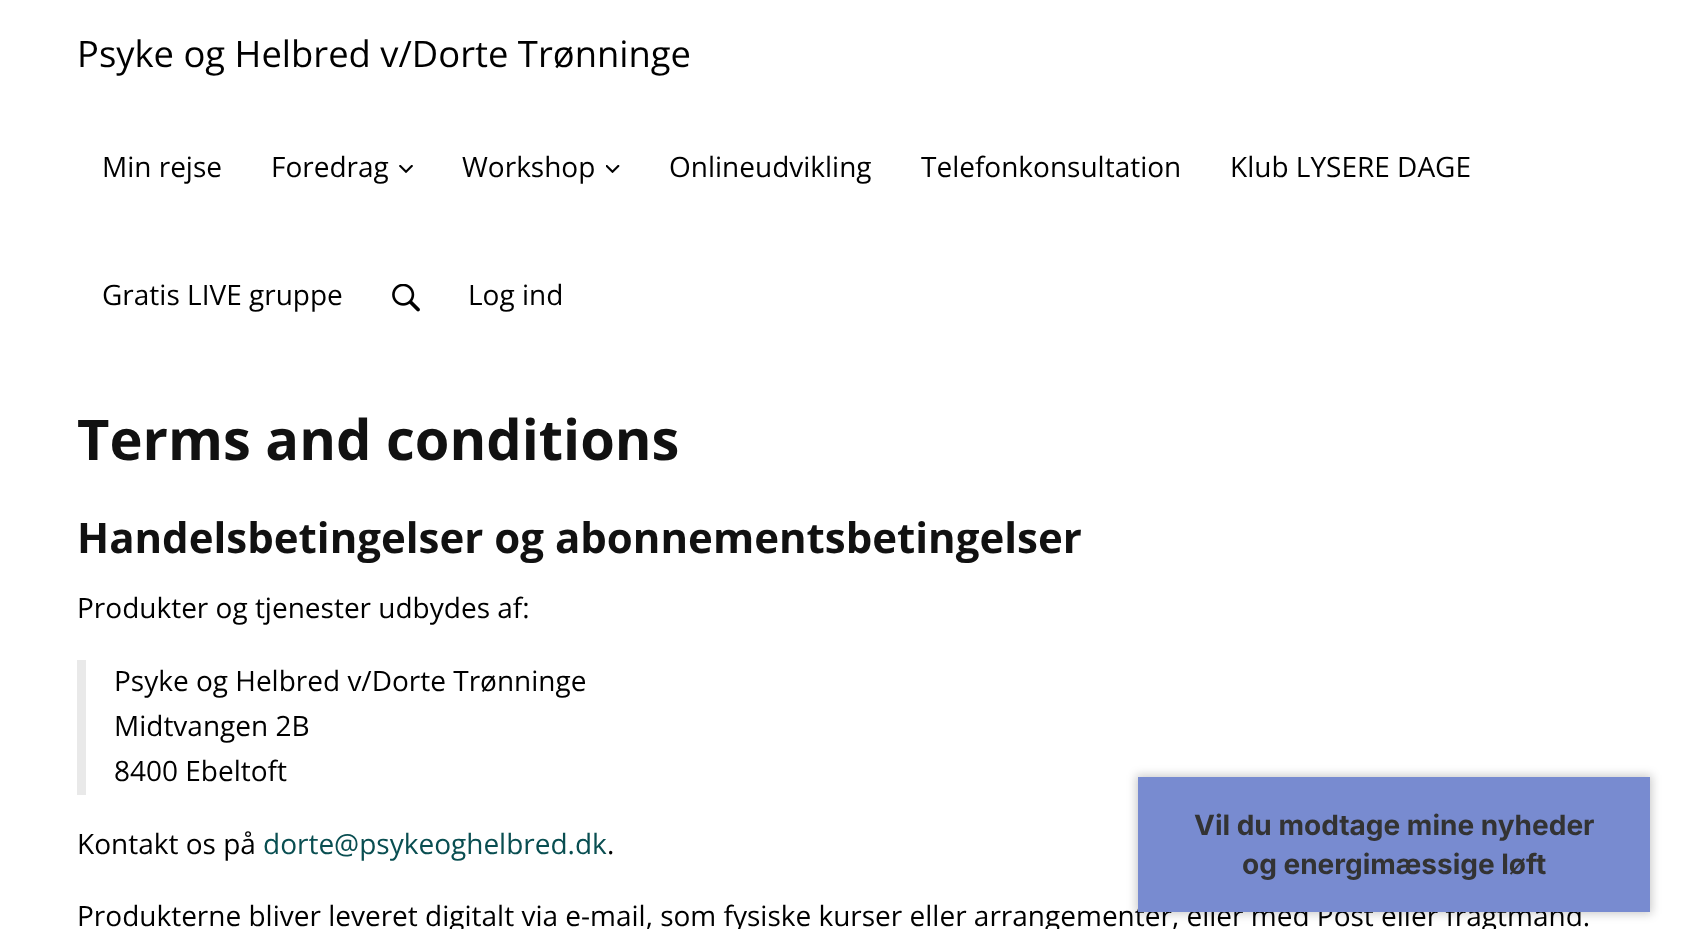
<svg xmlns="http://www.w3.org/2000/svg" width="1684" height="929">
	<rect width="100%" height="100%" fill="#FFFFFF" />
	<text x="77" y="67" font-family="Open Sans" font-size="36.4" fill="#000000">Psyke og Helbred v/Dorte Trønninge</text>
	<g font-family="Open Sans" font-size="28" fill="#000000">
		<text x="102" y="177">Min rejse</text>
		<text x="271" y="177">Foredrag</text>
	</g>
	<image x="399" y="165" width="14" height="8" href="assets/img1.png" />
	<text x="462" y="177" font-family="Open Sans" font-size="28" fill="#000000">Workshop</text>
	<image x="606" y="165" width="14" height="8" href="assets/img2.png" />
	<g font-family="Open Sans" font-size="28" fill="#000000">
		<text x="669" y="177">Onlineudvikling</text>
		<text x="921" y="177">Telefonkonsultation</text>
		<text x="1230" y="177">Klub LYSERE DAGE</text>
		<text x="102" y="305">Gratis LIVE gruppe</text>
	</g>
	<image x="392" y="284" width="28" height="28" href="assets/img3.png" />
	<text x="468" y="305" font-family="Open Sans" font-size="28" fill="#000000">Log ind</text>
	<text x="77" y="460" font-family="Open Sans" font-size="56" font-weight="700" fill="#111111">Terms and conditions</text>
	<text x="77" y="553" font-family="Open Sans" font-size="42" font-weight="700" fill="#111111">Handelsbetingelser og abonnementsbetingelser</text>
	<text x="77" y="618" font-family="Open Sans" font-size="28" fill="#000000">Produkter og tjenester udbydes af:</text>
	<rect x="77" y="660" width="9" height="135" fill="#E9E9E9" />
	<g font-family="Open Sans" font-size="28" fill="#000000">
		<text x="114" y="691">Psyke og Helbred v/Dorte Trønninge</text>
		<text x="114" y="736">Midtvangen 2B</text>
		<text x="114" y="781">8400 Ebeltoft</text>
		<text x="77" y="854">Kontakt os på</text>
	</g>
	<text x="263" y="854" font-family="Open Sans" font-size="28" fill="#094E51">dorte@psykeoghelbred.dk</text>
	<g font-family="Open Sans" font-size="28" fill="#000000">
		<text x="607" y="854">.</text>
		<text x="77" y="926">Produkterne bliver leveret digitalt via e-mail, som fysiske kurser eller arrangementer, eller med Post eller fragtmand.</text>
	</g>
	<rect x="1136" y="775" width="516" height="139" fill="#000000" fill-opacity="0.2" filter="blur(5px)" />
	<rect x="1138" y="777" width="512" height="135" fill="#788BD0" />
	<g font-family="Inter" font-size="28" font-weight="700" fill="#333333">
		<text x="1194" y="835">Vil du modtage mine nyheder</text>
		<text x="1242" y="874">og energimæssige løft</text>
	</g>
</svg>
